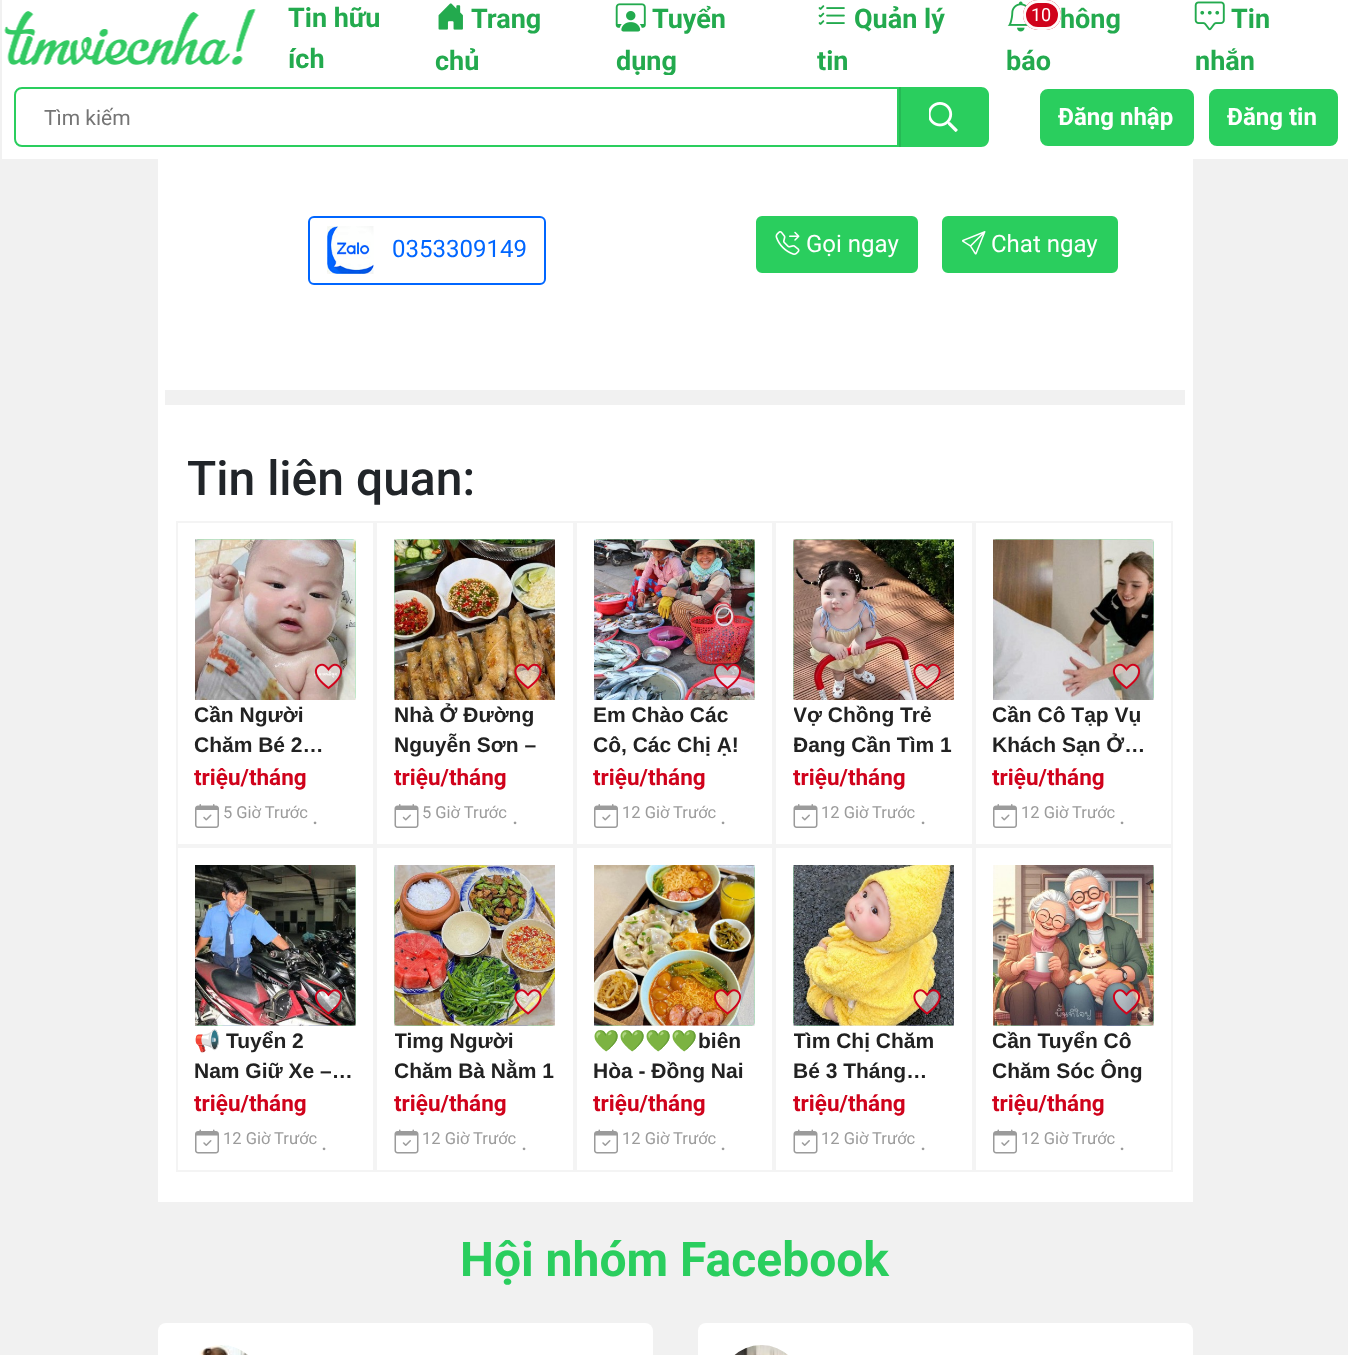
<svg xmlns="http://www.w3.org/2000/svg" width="1348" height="1355">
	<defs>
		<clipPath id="clip1"><rect x="794" y="701" width="160" height="60" /></clipPath>
		<clipPath id="clip2"><rect x="195" y="1026" width="161" height="60" /></clipPath>
		<clipPath id="clip3"><rect x="395" y="1026" width="160" height="60" /></clipPath>
		<clipPath id="clip4"><rect x="594" y="1026" width="161" height="60" /></clipPath>
		<clipPath id="clip5"><rect x="794" y="1026" width="160" height="60" /></clipPath>
	</defs>
	<rect width="100%" height="100%" fill="#F1F1F1" />
	<rect x="2" y="0" width="1346" height="75" fill="#FFFFFF" />
	<image x="4" y="9" width="252" height="56" href="assets/img1.png" />
	<g font-family="Roboto" font-size="27" font-weight="700" fill="#23AA4E">
		<text x="288" y="27">Tin hữu</text>
		<text x="288" y="68">ích</text>
	</g>
	<image x="438" y="3" width="25" height="27" href="assets/img2.png" />
	<g font-family="Roboto" font-size="27" font-weight="700" fill="#23AA4E">
		<text x="471" y="28">Trang</text>
		<text x="435" y="70">chủ</text>
	</g>
	<image x="615" y="3" width="31" height="29" href="assets/img3.png" />
	<g font-family="Roboto" font-size="27" font-weight="700" fill="#23AA4E">
		<text x="652" y="28">Tuyển</text>
		<text x="616" y="70">dụng</text>
	</g>
	<image x="818" y="5" width="27" height="20" href="assets/img4.png" />
	<g font-family="Roboto" font-size="27" font-weight="700" fill="#23AA4E">
		<text x="854" y="28">Quản lý</text>
		<text x="817" y="70">tin</text>
	</g>
	<image x="1007" y="1" width="21" height="31" href="assets/img5.png" />
	<text x="1060" y="28" font-family="Roboto" font-size="27" font-weight="700" fill="#23AA4E">hông</text>
	<rect x="1023" y="0" width="38" height="30" rx="15" fill="#D0021B" />
	<rect x="1024.5" y="1.5" width="35" height="27" rx="13.5" fill="none" stroke="#FFFFFF" stroke-opacity="0.98" stroke-width="3" />
	<text x="1031" y="21" font-family="Roboto" font-size="18" fill="#FFFFFF">10</text>
	<text x="1006" y="70" font-family="Roboto" font-size="27" font-weight="700" fill="#23AA4E">báo</text>
	<image x="1194" y="1" width="31" height="30" href="assets/img6.png" />
	<g font-family="Roboto" font-size="27" font-weight="700" fill="#23AA4E">
		<text x="1231" y="28">Tin</text>
		<text x="1195" y="70">nhắn</text>
	</g>
	<rect x="2" y="75" width="1346" height="84" fill="#FFFFFF" />
	<path d="M22 88H898V146H22C18 146 15 143 15 139V95C15 91 18 88 22 88Z" fill="none" stroke="#2ACE5E" stroke-width="2" />
	<text x="44" y="125" font-family="Roboto" font-size="21" fill="#757575">Tìm kiếm</text>
	<path d="M899 87H981C985.5 87 989 90.5 989 95V139C989 143.5 985.5 147 981 147H899Z" fill="#2ACE5E" />
	<image x="929" y="102" width="29" height="30" href="assets/img7.png" />
	<rect x="899" y="87" width="2" height="60" fill="#26B955" />
	<rect x="1041" y="90" width="152" height="55" rx="7" fill="#2ACE5E" stroke="#2ACE5E" stroke-width="2" />
	<text x="1058" y="125" font-family="Roboto" font-size="24" font-weight="700" fill="#FFFFFF">Đăng nhập</text>
	<rect x="1210" y="90" width="127" height="55" rx="7" fill="#2ACE5E" stroke="#2ACE5E" stroke-width="2" />
	<text x="1227" y="125" font-family="Roboto" font-size="24" font-weight="700" fill="#FFFFFF">Đăng tin</text>
	<rect x="158" y="159" width="1035" height="1043" fill="#FFFFFF" />
	<rect x="309" y="217" width="236" height="67" rx="5" fill="none" stroke="#0066FF" stroke-width="2" />
	<image x="327" y="226" width="47" height="48" href="assets/img8.png" />
	<text x="392" y="257" font-family="Roboto" font-size="24" fill="#0066FF">0353309149</text>
	<rect x="757" y="217" width="160" height="55" rx="5" fill="#2ACE5E" stroke="#2ACE5E" stroke-width="2" />
	<image x="775" y="231" width="25" height="24" href="assets/img9.png" />
	<text x="806" y="252" font-family="Roboto" font-size="24" fill="#FFFFFF">Gọi ngay</text>
	<rect x="943" y="217" width="174" height="55" rx="5" fill="#2ACE5E" stroke="#2ACE5E" stroke-width="2" />
	<image x="962" y="231" width="24" height="24" href="assets/img10.png" />
	<text x="991" y="252" font-family="Roboto" font-size="24" fill="#FFFFFF">Chat ngay</text>
	<rect x="165" y="390" width="1020" height="15" fill="#F1F1F1" />
	<text x="187" y="495" font-family="Roboto" font-size="48" font-weight="500" fill="#212529">Tin liên quan:</text>
	<rect x="177" y="522" width="197" height="323" fill="none" stroke="#F4F4F4" stroke-width="2" />
	<image x="196" y="539" width="160" height="160" href="assets/img11.png" />
	<image x="195" y="539" width="161" height="161" href="assets/img12.png" />
	<image x="314" y="663" width="29" height="27" href="assets/img13.png" />
	<g font-family="Liberation Sans" font-size="21" font-weight="700" fill="#222222">
		<text x="194" y="722">Cần Người</text>
		<text x="194" y="752">Chăm Bé 2…</text>
	</g>
	<text x="194" y="785" font-family="Roboto" font-size="22.5" font-weight="700" fill="#D0021B">triệu/tháng</text>
	<image x="195" y="804" width="24" height="24" href="assets/img14.png" />
	<text x="223" y="818" font-family="Roboto" font-size="16.5" fill="#9B9B9B">5 Giờ Trước</text>
	<text x="312" y="824" font-family="Roboto" font-size="24" fill="#9B9B9B">.</text>
	<rect x="376" y="522" width="198" height="323" fill="none" stroke="#F4F4F4" stroke-width="2" />
	<image x="394" y="539" width="160" height="160" href="assets/img15.png" />
	<image x="394" y="539" width="161" height="161" href="assets/img16.png" />
	<image x="514" y="663" width="28" height="27" href="assets/img17.png" />
	<g font-family="Liberation Sans" font-size="21" font-weight="700" fill="#222222">
		<text x="394" y="722">Nhà Ở Đường</text>
		<text x="394" y="752">Nguyễn Sơn –</text>
	</g>
	<text x="394" y="785" font-family="Roboto" font-size="22.5" font-weight="700" fill="#D0021B">triệu/tháng</text>
	<image x="394" y="804" width="25" height="24" href="assets/img18.png" />
	<text x="422" y="818" font-family="Roboto" font-size="16.5" fill="#9B9B9B">5 Giờ Trước</text>
	<text x="512" y="824" font-family="Roboto" font-size="24" fill="#9B9B9B">.</text>
	<rect x="576" y="522" width="197" height="323" fill="none" stroke="#F4F4F4" stroke-width="2" />
	<image x="595" y="539" width="160" height="160" href="assets/img11.png" />
	<image x="594" y="539" width="161" height="161" href="assets/img19.png" />
	<image x="713" y="663" width="29" height="27" href="assets/img20.png" />
	<g font-family="Liberation Sans" font-size="21" font-weight="700" fill="#222222">
		<text x="593" y="722">Em Chào Các</text>
		<text x="593" y="752">Cô, Các Chị Ạ!</text>
	</g>
	<text x="593" y="785" font-family="Roboto" font-size="22.5" font-weight="700" fill="#D0021B">triệu/tháng</text>
	<image x="594" y="804" width="24" height="24" href="assets/img14.png" />
	<text x="622" y="818" font-family="Roboto" font-size="16.5" fill="#9B9B9B">12 Giờ Trước</text>
	<text x="720" y="824" font-family="Roboto" font-size="24" fill="#9B9B9B">.</text>
	<rect x="775" y="522" width="198" height="323" fill="none" stroke="#F4F4F4" stroke-width="2" />
	<image x="793" y="539" width="160" height="160" href="assets/img15.png" />
	<image x="793" y="539" width="161" height="161" href="assets/img21.png" />
	<image x="913" y="663" width="28" height="27" href="assets/img22.png" />
	<g clip-path="url(#clip1)">
		<g font-family="Liberation Sans" font-size="21" font-weight="700" fill="#222222">
			<text x="793" y="722">Vợ Chồng Trẻ</text>
			<text x="793" y="752">Đang Cần Tìm 1</text>
		</g>
	</g>
	<text x="793" y="785" font-family="Roboto" font-size="22.5" font-weight="700" fill="#D0021B">triệu/tháng</text>
	<image x="793" y="804" width="25" height="24" href="assets/img18.png" />
	<text x="821" y="818" font-family="Roboto" font-size="16.5" fill="#9B9B9B">12 Giờ Trước</text>
	<text x="920" y="824" font-family="Roboto" font-size="24" fill="#9B9B9B">.</text>
	<rect x="975" y="522" width="197" height="323" fill="none" stroke="#F4F4F4" stroke-width="2" />
	<image x="994" y="539" width="160" height="160" href="assets/img11.png" />
	<image x="993" y="539" width="161" height="161" href="assets/img23.png" />
	<image x="1112" y="663" width="29" height="27" href="assets/img24.png" />
	<g font-family="Liberation Sans" font-size="21" font-weight="700" fill="#222222">
		<text x="992" y="722">Cần Cô Tạp Vụ</text>
		<text x="992" y="752">Khách Sạn Ở…</text>
	</g>
	<text x="992" y="785" font-family="Roboto" font-size="22.5" font-weight="700" fill="#D0021B">triệu/tháng</text>
	<image x="993" y="804" width="24" height="24" href="assets/img14.png" />
	<text x="1021" y="818" font-family="Roboto" font-size="16.5" fill="#9B9B9B">12 Giờ Trước</text>
	<text x="1119" y="824" font-family="Roboto" font-size="24" fill="#9B9B9B">.</text>
	<rect x="177" y="847" width="197" height="324" fill="none" stroke="#F4F4F4" stroke-width="2" />
	<image x="196" y="866" width="160" height="160" href="assets/img25.png" />
	<image x="195" y="865" width="161" height="161" href="assets/img26.png" />
	<image x="314" y="989" width="29" height="26" href="assets/img27.png" />
	<g clip-path="url(#clip2)">
		<text x="194" y="1048" font-family="Noto Color Emoji" font-size="21" font-weight="700" fill="#222222">📢</text>
	</g>
	<g font-family="Liberation Sans" font-size="21" font-weight="700" fill="#222222">
		<text x="226" y="1048">Tuyển 2</text>
		<text x="194" y="1078">Nam Giữ Xe –…</text>
	</g>
	<text x="194" y="1111" font-family="Roboto" font-size="22.5" font-weight="700" fill="#D0021B">triệu/tháng</text>
	<image x="195" y="1129" width="24" height="25" href="assets/img28.png" />
	<text x="223" y="1144" font-family="Roboto" font-size="16.5" fill="#9B9B9B">12 Giờ Trước</text>
	<text x="321" y="1150" font-family="Roboto" font-size="24" fill="#9B9B9B">.</text>
	<rect x="376" y="847" width="198" height="324" fill="none" stroke="#F4F4F4" stroke-width="2" />
	<image x="394" y="866" width="160" height="160" href="assets/img29.png" />
	<image x="394" y="865" width="161" height="161" href="assets/img30.png" />
	<image x="514" y="989" width="28" height="26" href="assets/img31.png" />
	<g clip-path="url(#clip3)">
		<g font-family="Liberation Sans" font-size="21" font-weight="700" fill="#222222">
			<text x="394" y="1048">Timg Người</text>
			<text x="394" y="1078">Chăm Bà Nằm 1</text>
		</g>
	</g>
	<text x="394" y="1111" font-family="Roboto" font-size="22.5" font-weight="700" fill="#D0021B">triệu/tháng</text>
	<image x="394" y="1129" width="25" height="25" href="assets/img32.png" />
	<text x="422" y="1144" font-family="Roboto" font-size="16.5" fill="#9B9B9B">12 Giờ Trước</text>
	<text x="521" y="1150" font-family="Roboto" font-size="24" fill="#9B9B9B">.</text>
	<rect x="576" y="847" width="197" height="324" fill="none" stroke="#F4F4F4" stroke-width="2" />
	<image x="595" y="866" width="160" height="160" href="assets/img25.png" />
	<image x="594" y="865" width="161" height="161" href="assets/img33.png" />
	<image x="713" y="989" width="29" height="26" href="assets/img34.png" />
	<g clip-path="url(#clip4)">
		<text x="593" y="1048" font-family="Noto Color Emoji" font-size="21" font-weight="700" fill="#222222">💚💚💚💚</text>
	</g>
	<g font-family="Liberation Sans" font-size="21" font-weight="700" fill="#222222">
		<text x="698" y="1048">biên</text>
		<text x="593" y="1078">Hòa - Đồng Nai</text>
	</g>
	<text x="593" y="1111" font-family="Roboto" font-size="22.5" font-weight="700" fill="#D0021B">triệu/tháng</text>
	<image x="594" y="1129" width="24" height="25" href="assets/img28.png" />
	<text x="622" y="1144" font-family="Roboto" font-size="16.5" fill="#9B9B9B">12 Giờ Trước</text>
	<text x="720" y="1150" font-family="Roboto" font-size="24" fill="#9B9B9B">.</text>
	<rect x="775" y="847" width="198" height="324" fill="none" stroke="#F4F4F4" stroke-width="2" />
	<image x="793" y="866" width="160" height="160" href="assets/img29.png" />
	<image x="793" y="865" width="161" height="161" href="assets/img35.png" />
	<image x="913" y="989" width="28" height="26" href="assets/img36.png" />
	<g clip-path="url(#clip5)">
		<text x="793" y="1048" font-family="Liberation Sans" font-size="21" font-weight="700" fill="#222222">Tìm Chị Chăm</text>
	</g>
	<text x="793" y="1078" font-family="Liberation Sans" font-size="21" font-weight="700" fill="#222222">Bé 3 Tháng…</text>
	<text x="793" y="1111" font-family="Roboto" font-size="22.5" font-weight="700" fill="#D0021B">triệu/tháng</text>
	<image x="793" y="1129" width="25" height="25" href="assets/img32.png" />
	<text x="821" y="1144" font-family="Roboto" font-size="16.5" fill="#9B9B9B">12 Giờ Trước</text>
	<text x="920" y="1150" font-family="Roboto" font-size="24" fill="#9B9B9B">.</text>
	<rect x="975" y="847" width="197" height="324" fill="none" stroke="#F4F4F4" stroke-width="2" />
	<image x="994" y="866" width="160" height="160" href="assets/img25.png" />
	<image x="993" y="865" width="161" height="161" href="assets/img37.png" />
	<image x="1112" y="989" width="29" height="26" href="assets/img38.png" />
	<g font-family="Liberation Sans" font-size="21" font-weight="700" fill="#222222">
		<text x="992" y="1048">Cần Tuyển Cô</text>
		<text x="992" y="1078">Chăm Sóc Ông</text>
	</g>
	<text x="992" y="1111" font-family="Roboto" font-size="22.5" font-weight="700" fill="#D0021B">triệu/tháng</text>
	<image x="993" y="1129" width="24" height="25" href="assets/img28.png" />
	<text x="1021" y="1144" font-family="Roboto" font-size="16.5" fill="#9B9B9B">12 Giờ Trước</text>
	<text x="1119" y="1150" font-family="Roboto" font-size="24" fill="#9B9B9B">.</text>
	<text x="460" y="1276" font-family="Roboto" font-size="48" font-weight="700" fill="#2ACE5E">Hội nhóm Facebook</text>
	<rect x="158" y="1323" width="495" height="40" rx="8" fill="#FFFFFF" />
	<image x="199" y="1345" width="49" height="10" href="assets/img39.png" />
	<rect x="698" y="1323" width="495" height="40" rx="8" fill="#FFFFFF" />
	<image x="734" y="1345" width="54" height="10" href="assets/img40.png" />
</svg>
